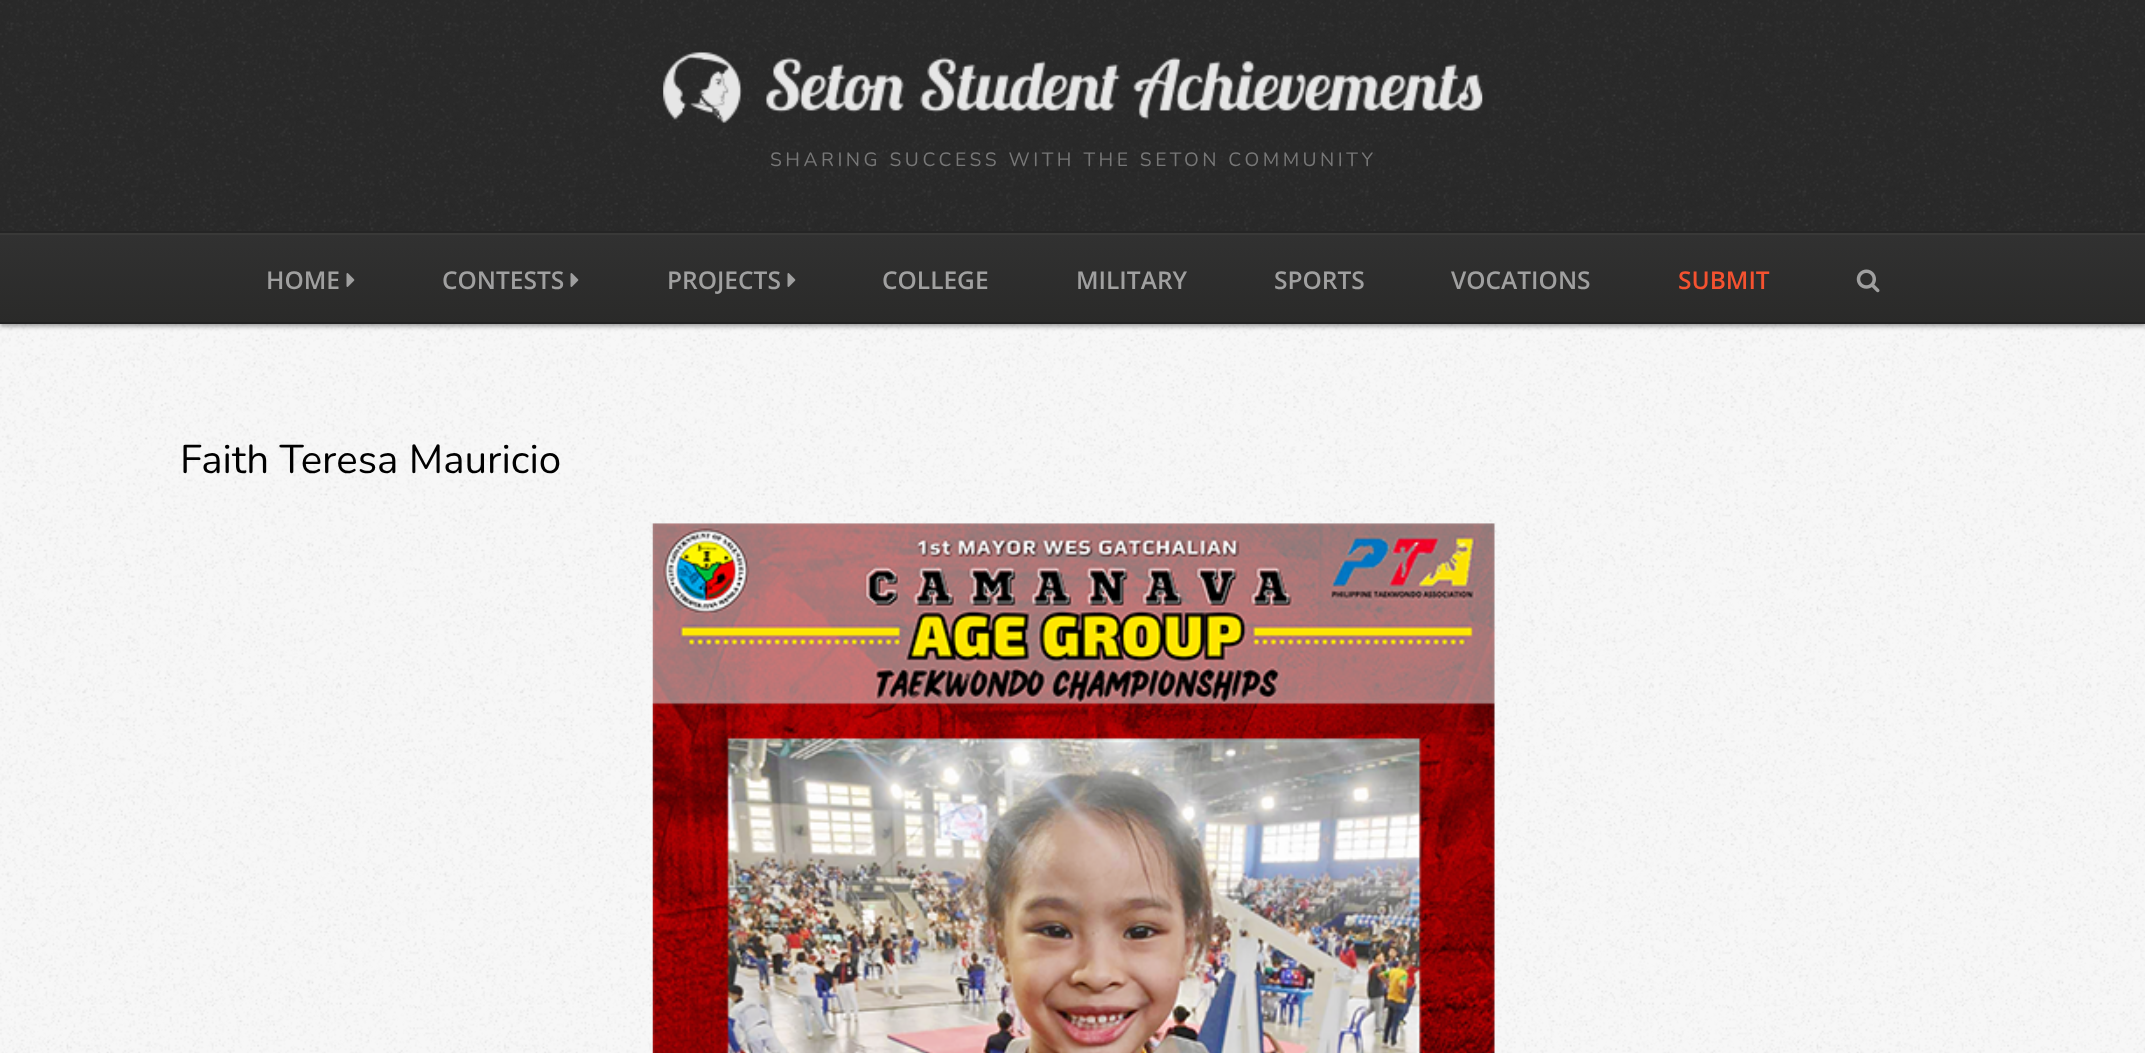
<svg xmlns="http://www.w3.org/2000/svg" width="2145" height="1053">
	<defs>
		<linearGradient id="g1" gradientUnits="userSpaceOnUse" x1="1073" y1="233" x2="1073" y2="324"><stop offset="0" stop-color="#313131" /><stop offset="1" stop-color="#2A2A29" /></linearGradient>
	</defs>
	<rect width="100%" height="100%" fill="#F7F7F7" />
	<image x="0" y="324" width="2145" height="729" href="assets/img1.png" />
	<rect x="0" y="233" width="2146" height="93" fill="#000000" fill-opacity="0.4" filter="blur(2.5px)" />
	<rect x="0" y="0" width="2145" height="231" fill="#292929" />
	<image x="0" y="0" width="2145" height="231" href="assets/img2.png" />
	<image x="663" y="52" width="820" height="71" href="assets/img3.png" />
	<text x="770" y="166" font-family="Nunito" font-size="19.25" letter-spacing="3.5" fill="#777777">SHARING SUCCESS WITH THE SETON COMMUNITY</text>
	<rect x="0" y="235" width="2145" height="87" fill="url(#g1)" />
	<rect x="0" y="231" width="2145" height="2" fill="#252525" />
	<rect x="0" y="233" width="2145" height="2" fill="#393938" />
	<rect x="0" y="322" width="2145" height="2" fill="#222222" />
	<text x="266" y="289" font-family="Open Sans" font-size="24.5" font-weight="600" fill="#A0A0A0">HOME</text>
	<image x="346" y="273" width="9" height="14" href="assets/img4.png" />
	<text x="442" y="289" font-family="Open Sans" font-size="24.5" font-weight="600" fill="#A0A0A0">CONTESTS</text>
	<image x="570" y="273" width="9" height="14" href="assets/img4.png" />
	<text x="667" y="289" font-family="Open Sans" font-size="24.5" font-weight="600" fill="#A0A0A0">PROJECTS</text>
	<image x="787" y="273" width="9" height="14" href="assets/img4.png" />
	<g font-family="Open Sans" font-size="24.5" font-weight="600" fill="#A0A0A0">
		<text x="882" y="289">COLLEGE</text>
		<text x="1076" y="289">MILITARY</text>
		<text x="1274" y="289">SPORTS</text>
		<text x="1451" y="289">VOCATIONS</text>
	</g>
	<text x="1678" y="289" font-family="Open Sans" font-size="24.5" font-weight="600" fill="#F55230">SUBMIT</text>
	<image x="1856" y="269" width="24" height="24" href="assets/img5.png" />
	<text x="180" y="473" font-family="Nunito" font-size="40.25" fill="#000000">Faith Teresa Mauricio</text>
	<image x="652" y="523" width="843" height="530" href="assets/img6.png" />
</svg>
